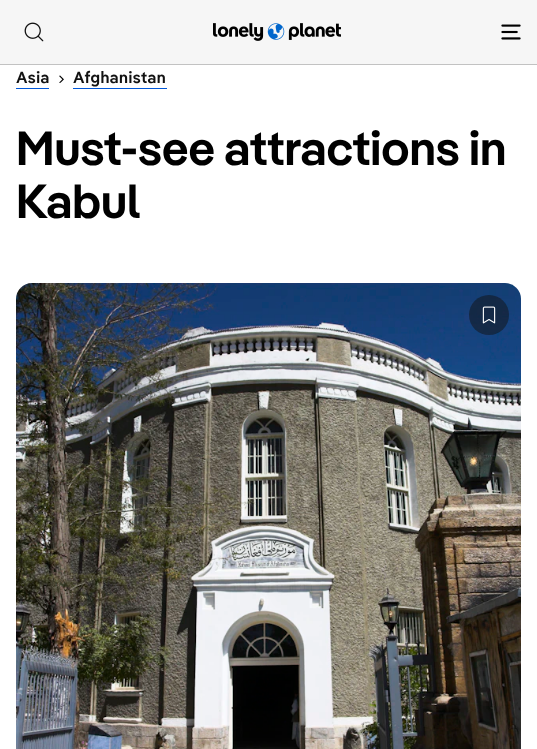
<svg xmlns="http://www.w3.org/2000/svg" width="537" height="749">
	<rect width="100%" height="100%" fill="#FFFFFF" />
	<rect x="0" y="0" width="537" height="64" fill="#F6F6F6" />
	<rect x="0" y="64" width="537" height="1" fill="#C2C2C2" />
	<image x="24" y="22" width="20" height="20" href="assets/img1.png" />
	<image x="213" y="23" width="128" height="18" href="assets/img2.png" />
	<image x="501" y="24" width="20" height="16" href="assets/img3.png" />
	<text x="16" y="83" font-family="'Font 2'" font-size="16" font-weight="600" fill="#121212">Asia</text>
	<rect x="16" y="88" width="33" height="1" fill="#0057D9" />
	<image x="59" y="75" width="5" height="8" href="assets/img4.png" />
	<text x="73" y="83" font-family="'Font 2'" font-size="16" font-weight="600" fill="#121212">Afghanistan</text>
	<rect x="73" y="88" width="94" height="1" fill="#0057D9" />
	<g font-family="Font" font-size="48" font-weight="600" fill="#000000">
		<text x="16" y="165">Must-see attractions in</text>
		<text x="16" y="218">Kabul</text>
	</g>
	<image x="16" y="283" width="505" height="466" href="assets/img5.png" />
	<circle cx="489" cy="315" r="20" fill="#121212" fill-opacity="0.5" />
	<image x="482" y="306" width="14" height="18" href="assets/img6.png" />
</svg>
